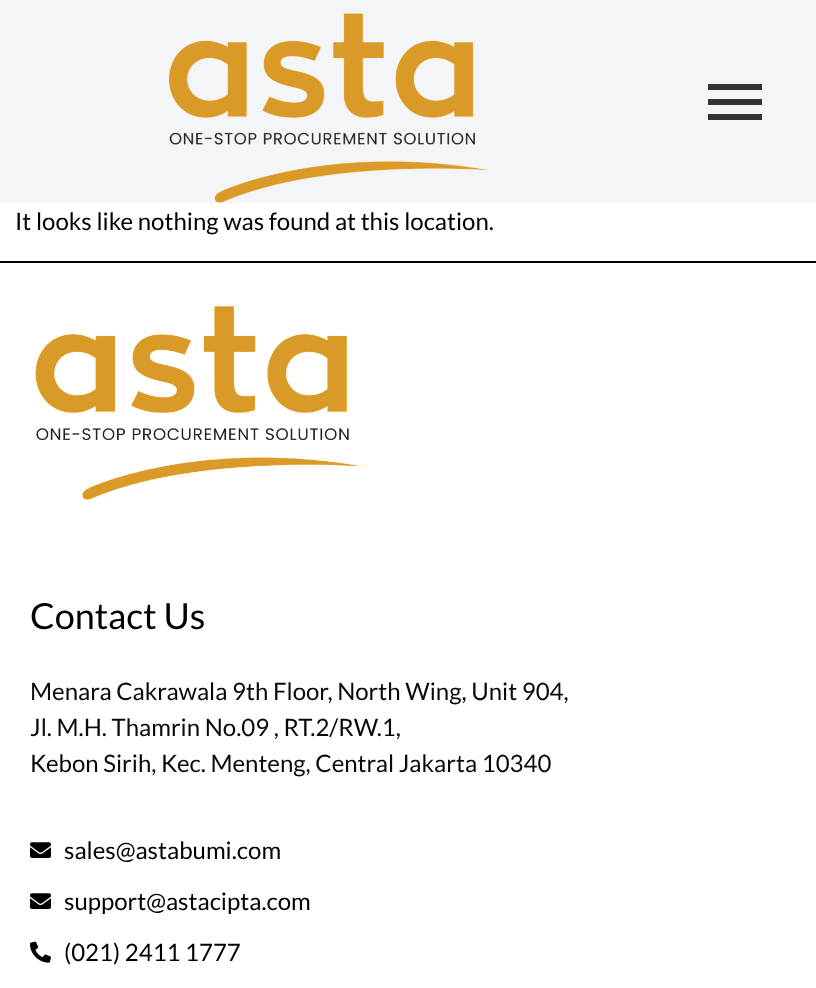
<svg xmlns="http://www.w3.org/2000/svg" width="816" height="988">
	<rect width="100%" height="100%" fill="#FFFFFF" />
	<rect x="0" y="0" width="816" height="203" fill="#F4F5F8" />
	<image x="168" y="13" width="321" height="190" href="assets/img1.png" />
	<rect x="708" y="84" width="54" height="6" fill="#333333" />
	<rect x="708" y="99" width="54" height="6" fill="#333333" />
	<rect x="708" y="114" width="54" height="6" fill="#333333" />
	<text x="15" y="230" font-family="Lato" font-size="24" fill="#000000">It looks like nothing was found at this location.</text>
	<rect x="0" y="261" width="816" height="2" fill="#000000" />
	<image x="35" y="306" width="328" height="194" href="assets/img2.png" />
	<text x="30" y="629" font-family="Lato" font-size="36" fill="#000000">Contact Us</text>
	<g font-family="Lato" font-size="24" fill="#0A0A0A">
		<text x="30" y="700">Menara Cakrawala 9th Floor, North Wing, Unit 904,</text>
		<text x="30" y="736">Jl. M.H. Thamrin No.09 , RT.2/RW.1,</text>
		<text x="30" y="772">Kebon Sirih, Kec. Menteng, Central Jakarta 10340</text>
	</g>
	<image x="30" y="842" width="21" height="16" href="assets/img3.png" />
	<text x="64" y="859" font-family="Lato" font-size="24" fill="#000000">sales@astabumi.com</text>
	<image x="30" y="893" width="21" height="16" href="assets/img3.png" />
	<text x="64" y="910" font-family="Lato" font-size="24" fill="#000000">support@astacipta.com</text>
	<image x="30" y="941" width="21" height="22" href="assets/img4.png" />
	<text x="64" y="961" font-family="Lato" font-size="24" fill="#000000">(021) 2411 1777</text>
</svg>
